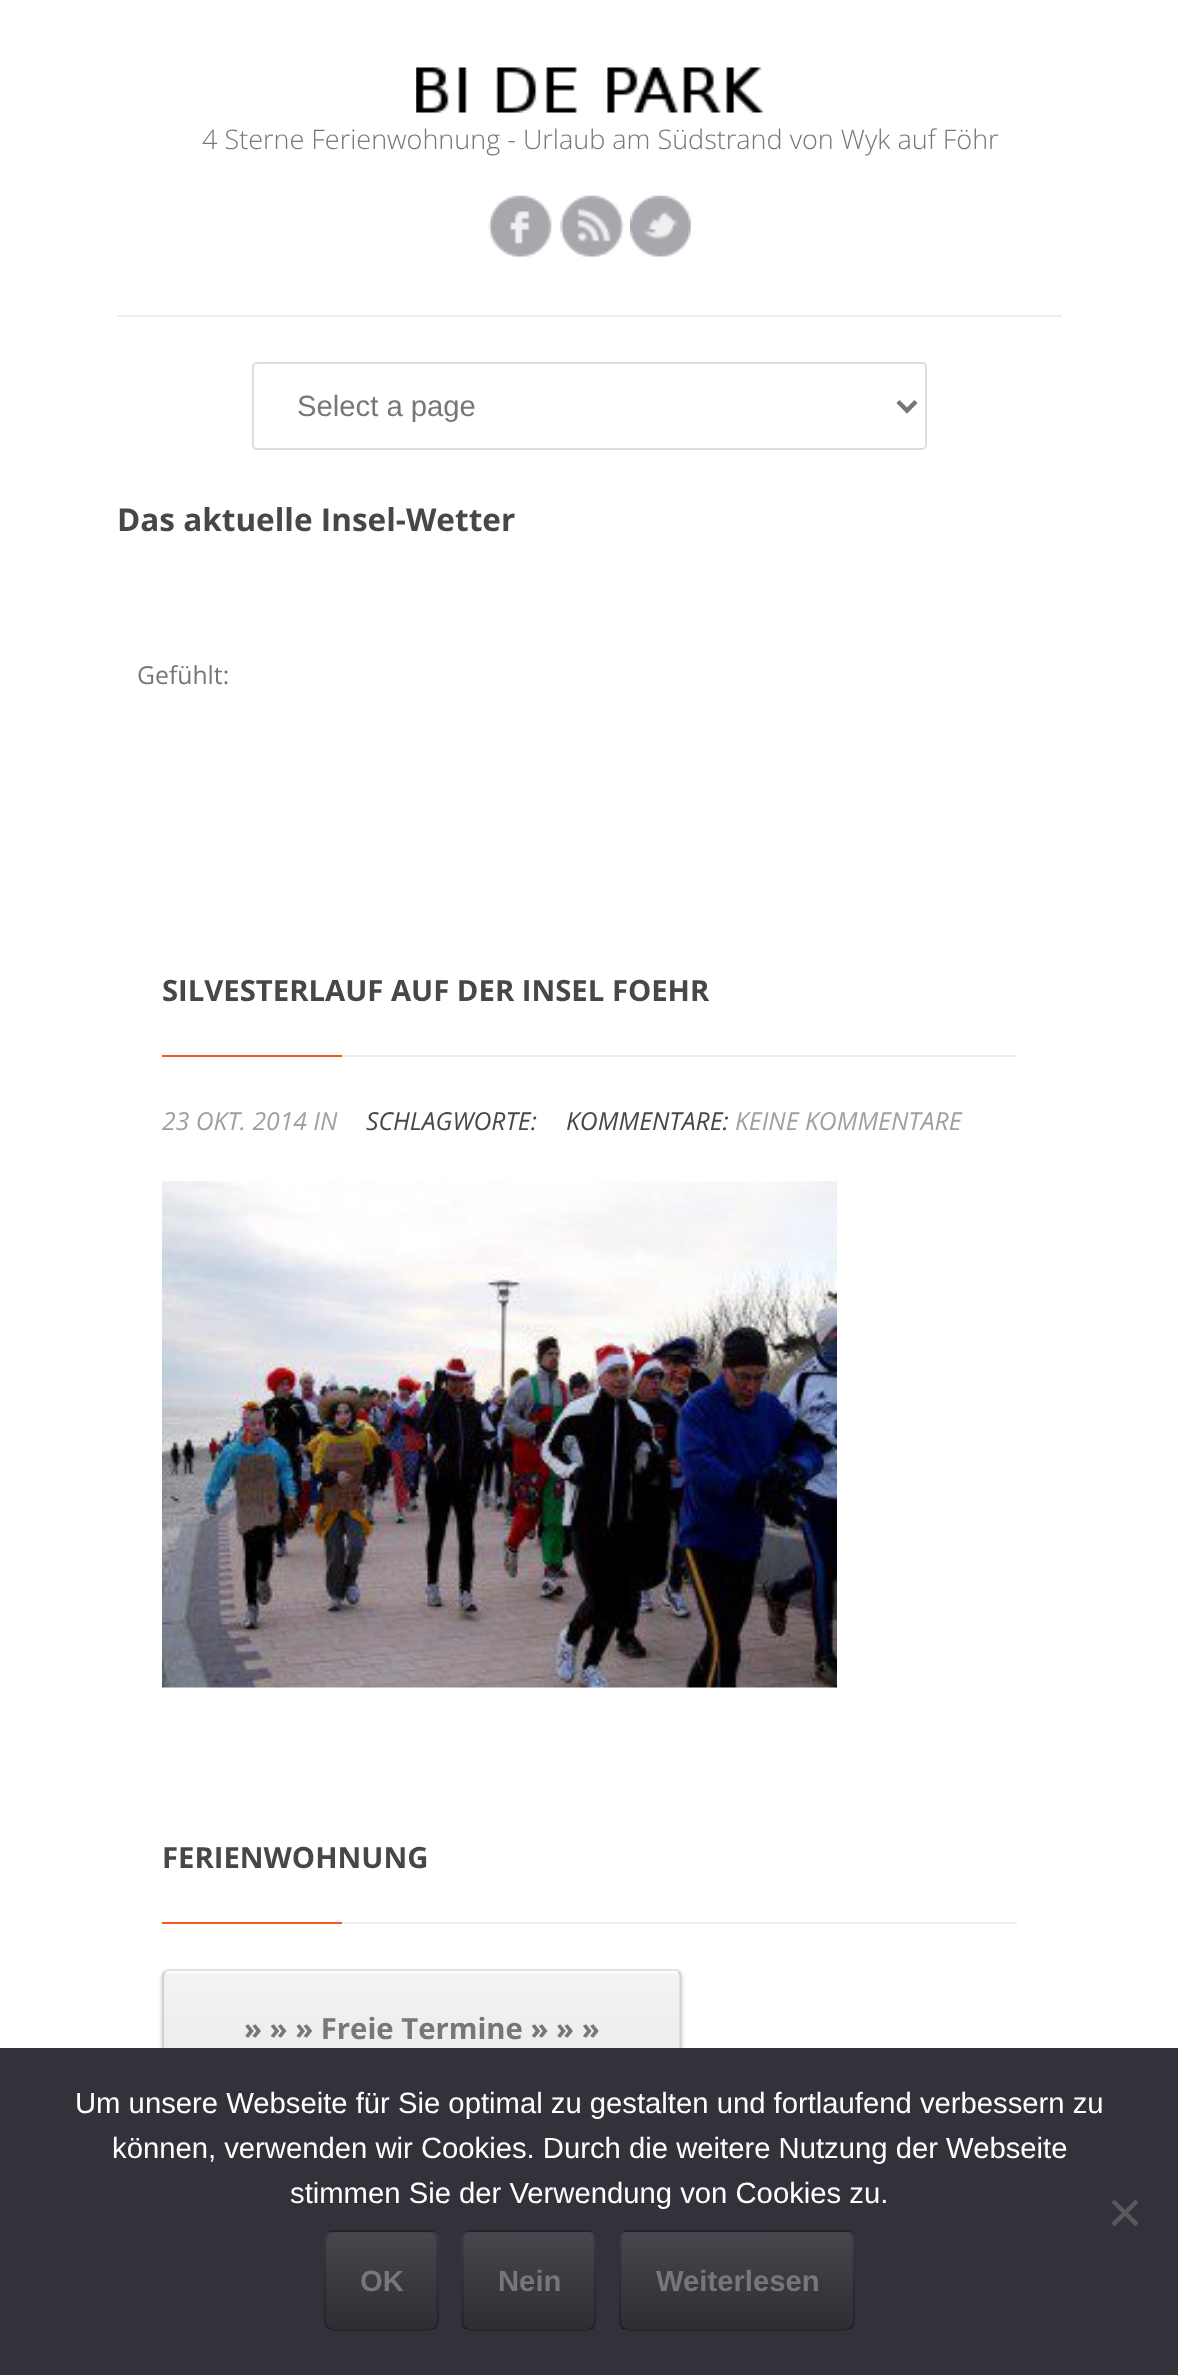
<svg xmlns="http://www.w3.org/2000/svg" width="1178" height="2375">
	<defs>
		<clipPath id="clip1"><rect x="162" y="1969" width="520" height="119" rx="7" /></clipPath>
		<linearGradient id="g1" gradientUnits="userSpaceOnUse" x1="422" y1="1971" x2="422" y2="2086"><stop offset="0" stop-color="#FFFFFF" /><stop offset="0.04" stop-color="#F3F3F3" /><stop offset="1" stop-color="#EAEAEA" /></linearGradient>
		<clipPath id="clip2"><rect x="324" y="2230" width="115" height="101" rx="9" /></clipPath>
		<linearGradient id="g2" gradientUnits="userSpaceOnUse" x1="381" y1="2232" x2="381" y2="2135"><stop offset="0" stop-color="#2D2D34" /><stop offset="1" stop-color="#46464E" /></linearGradient>
		<linearGradient id="g3" gradientUnits="userSpaceOnUse" x1="381" y1="2329" x2="381" y2="2232"><stop offset="0" stop-color="#000000" stop-opacity="0.1" /><stop offset="1" stop-color="#FFFFFF" stop-opacity="0.1" /></linearGradient>
		<linearGradient id="g4" gradientUnits="userSpaceOnUse" x1="381" y1="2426" x2="381" y2="2329"><stop offset="0" stop-color="#000000" stop-opacity="0.1" /><stop offset="1" stop-color="#FFFFFF" stop-opacity="0.1" /></linearGradient>
		<clipPath id="clip3"><rect x="461" y="2230" width="135" height="101" rx="9" /></clipPath>
		<linearGradient id="g5" gradientUnits="userSpaceOnUse" x1="529" y1="2232" x2="529" y2="2135"><stop offset="0" stop-color="#2D2D34" /><stop offset="1" stop-color="#46464E" /></linearGradient>
		<linearGradient id="g6" gradientUnits="userSpaceOnUse" x1="529" y1="2329" x2="529" y2="2232"><stop offset="0" stop-color="#000000" stop-opacity="0.1" /><stop offset="1" stop-color="#FFFFFF" stop-opacity="0.1" /></linearGradient>
		<linearGradient id="g7" gradientUnits="userSpaceOnUse" x1="529" y1="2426" x2="529" y2="2329"><stop offset="0" stop-color="#000000" stop-opacity="0.1" /><stop offset="1" stop-color="#FFFFFF" stop-opacity="0.1" /></linearGradient>
		<clipPath id="clip4"><rect x="619" y="2230" width="236" height="101" rx="9" /></clipPath>
		<linearGradient id="g8" gradientUnits="userSpaceOnUse" x1="737" y1="2232" x2="737" y2="2135"><stop offset="0" stop-color="#2D2D34" /><stop offset="1" stop-color="#46464E" /></linearGradient>
		<linearGradient id="g9" gradientUnits="userSpaceOnUse" x1="737" y1="2329" x2="737" y2="2232"><stop offset="0" stop-color="#000000" stop-opacity="0.1" /><stop offset="1" stop-color="#FFFFFF" stop-opacity="0.1" /></linearGradient>
		<linearGradient id="g10" gradientUnits="userSpaceOnUse" x1="737" y1="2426" x2="737" y2="2329"><stop offset="0" stop-color="#000000" stop-opacity="0.1" /><stop offset="1" stop-color="#FFFFFF" stop-opacity="0.1" /></linearGradient>
	</defs>
	<rect width="100%" height="100%" fill="#FFFFFF" />
	<image x="416" y="67" width="347" height="46" href="assets/img1.png" />
	<text x="202" y="149" font-family="Open Sans" font-size="27" font-weight="300" fill="#777777">4 Sterne Ferienwohnung - Urlaub am Südstrand von Wyk auf Föhr</text>
	<image x="488" y="195" width="64" height="62" href="assets/img2.png" />
	<image x="560" y="195" width="64" height="62" href="assets/img3.png" />
	<image x="630" y="195" width="61" height="62" href="assets/img4.png" />
	<rect x="117" y="315" width="945" height="2" fill="#EDEDED" />
	<rect x="253" y="363" width="673" height="86" rx="4" fill="none" stroke="#DDDDDD" stroke-width="2" />
	<path d="M898 401.5L907 410.5L916 401.5" fill="none" stroke="#777777" stroke-width="4.5" />
	<text x="297" y="416" font-family="Liberation Sans" font-size="29.25" fill="#777777">Select a page</text>
	<text x="117" y="531" font-family="Open Sans" font-size="31.5" font-weight="700" fill="#474747">Das aktuelle Insel-Wetter</text>
	<text x="137" y="684" font-family="Open Sans" font-size="24.75" fill="#777777">Gefühlt:</text>
	<rect x="342" y="1055" width="675" height="2" fill="#EDEDED" />
	<text x="162" y="1001" font-family="Open Sans" font-size="29.25" font-weight="700" fill="#474747">SILVESTERLAUF AUF DER INSEL FOEHR</text>
	<rect x="162" y="1055" width="180" height="2" fill="#F15A23" />
	<text x="162" y="1130" font-family="Open Sans" font-size="24.75" font-style="italic" fill="#A0A0A0">23 OKT. 2014 IN</text>
	<g font-family="Open Sans" font-size="24.75" font-style="italic" fill="#474747">
		<text x="366" y="1130">SCHLAGWORTE:</text>
		<text x="566" y="1130">KOMMENTARE:</text>
	</g>
	<text x="735" y="1130" font-family="Open Sans" font-size="24.75" font-style="italic" fill="#A0A0A0">KEINE KOMMENTARE</text>
	<image x="162" y="1181" width="675" height="507" href="assets/img5.png" />
	<rect x="342" y="1922" width="675" height="2" fill="#EDEDED" />
	<text x="162" y="1868" font-family="Open Sans" font-size="29.25" font-weight="700" fill="#474747">FERIENWOHNUNG</text>
	<rect x="162" y="1922" width="180" height="2" fill="#F15A23" />
	<rect x="162" y="1971" width="520" height="119" rx="7" fill="#000000" fill-opacity="0.2" filter="blur(2px)" />
	<g clip-path="url(#clip1)">
		<rect x="162" y="1971" width="520" height="77" fill="url(#g1)" />
	</g>
	<path d="M165 1971.5C166 1970.5 167.5 1970 169 1970H675C676.5 1970 678 1970.5 679 1971.5" fill="none" stroke="#E3E3E3" stroke-width="2.2" />
	<path d="M679 1971.5L680.5 1975V2082L679 2085" fill="none" stroke="#D2D2D2" stroke-width="2.2" />
	<path d="M165 2085L163 2082V1975L165 1971.5" fill="none" stroke="#D2D2D2" stroke-width="2.2" />
	<text x="244" y="2039" font-family="Open Sans" font-size="29.25" font-weight="700" fill="#777777">» » » Freie Termine » » »</text>
	<rect x="0" y="2048" width="1178" height="327" fill="#32323A" />
	<g font-family="Liberation Sans" font-size="29.25" fill="#FFFFFF">
		<text x="75" y="2113">Um unsere Webseite für Sie optimal zu gestalten und fortlaufend verbessern zu</text>
		<text x="112" y="2158">können, verwenden wir Cookies. Durch die weitere Nutzung der Webseite</text>
		<text x="290" y="2203">stimmen Sie der Verwendung von Cookies zu.</text>
	</g>
	<path d="M1135.5 2199.5L1138.5 2202.5L1114.5 2226.5L1111.5 2223Z" fill="#59595D" />
	<path d="M1111.5 2202.5L1114.5 2199.5L1138.5 2223L1135.5 2226.5Z" fill="#59595D" />
	<g clip-path="url(#clip2)">
		<rect x="324" y="2230" width="115" height="2" fill="url(#g2)" />
		<rect x="324" y="2232" width="115" height="97" fill="url(#g3)" />
		<rect x="324" y="2329" width="115" height="2" fill="url(#g4)" />
	</g>
	<path d="M435.5 2327.5C434 2329 432 2330 430 2330H333C331 2330 329 2329 327.5 2327.5" fill="none" stroke="#000000" stroke-opacity="0.4" stroke-width="2.2" />
	<path d="M327.5 2327.5C323 2323 325 2312 325 2308V2252.5C325 2228.5 324.5 2231 349 2231H413.5C438.5 2231 437.5 2228.5 437.5 2252.5V2308C437.5 2312 440 2323 435.5 2327.5" fill="none" stroke="#000000" stroke-opacity="0.2" stroke-width="2.2" />
	<text x="360" y="2291" font-family="Liberation Sans" font-size="29.25" font-weight="700" fill="#777777">OK</text>
	<g clip-path="url(#clip3)">
		<rect x="461" y="2230" width="135" height="2" fill="url(#g5)" />
		<rect x="461" y="2232" width="135" height="97" fill="url(#g6)" />
		<rect x="461" y="2329" width="135" height="2" fill="url(#g7)" />
	</g>
	<path d="M593 2327.5C591.5 2329 589.5 2330 587 2330H470C468 2330 466 2329 464.5 2327.5" fill="none" stroke="#000000" stroke-opacity="0.4" stroke-width="2.2" />
	<path d="M464.5 2327.5C463 2326 462.5 2324 462.5 2322V2239C462.5 2236.5 463 2234.5 464.5 2233C466 2231.5 468 2231 470 2231H587C589.5 2231 591.5 2231.5 593 2233C594.5 2234.5 595 2236.5 595 2239V2322C595 2324 594.5 2326 593 2327.5" fill="none" stroke="#000000" stroke-opacity="0.2" stroke-width="2.2" />
	<text x="498" y="2291" font-family="Liberation Sans" font-size="29.25" font-weight="700" fill="#777777">Nein</text>
	<g clip-path="url(#clip4)">
		<rect x="619" y="2230" width="236" height="2" fill="url(#g8)" />
		<rect x="619" y="2232" width="236" height="97" fill="url(#g9)" />
		<rect x="619" y="2329" width="236" height="2" fill="url(#g10)" />
	</g>
	<path d="M851.5 2327.5C850 2329 848 2330 846 2330H628C625.5 2330 623.5 2329 622 2327.5" fill="none" stroke="#000000" stroke-opacity="0.4" stroke-width="2.2" />
	<path d="M622 2327.5C620.5 2326 620 2324 620 2322V2239C620 2236.5 620.5 2234.5 622 2233C623.5 2231.5 625.5 2231 628 2231H846C848 2231 850 2231.5 851.5 2233C853 2234.5 854 2236.5 854 2239V2322C854 2324 853 2326 851.5 2327.5" fill="none" stroke="#000000" stroke-opacity="0.2" stroke-width="2.2" />
	<text x="656" y="2291" font-family="Liberation Sans" font-size="29.25" font-weight="700" fill="#777777">Weiterlesen</text>
</svg>
